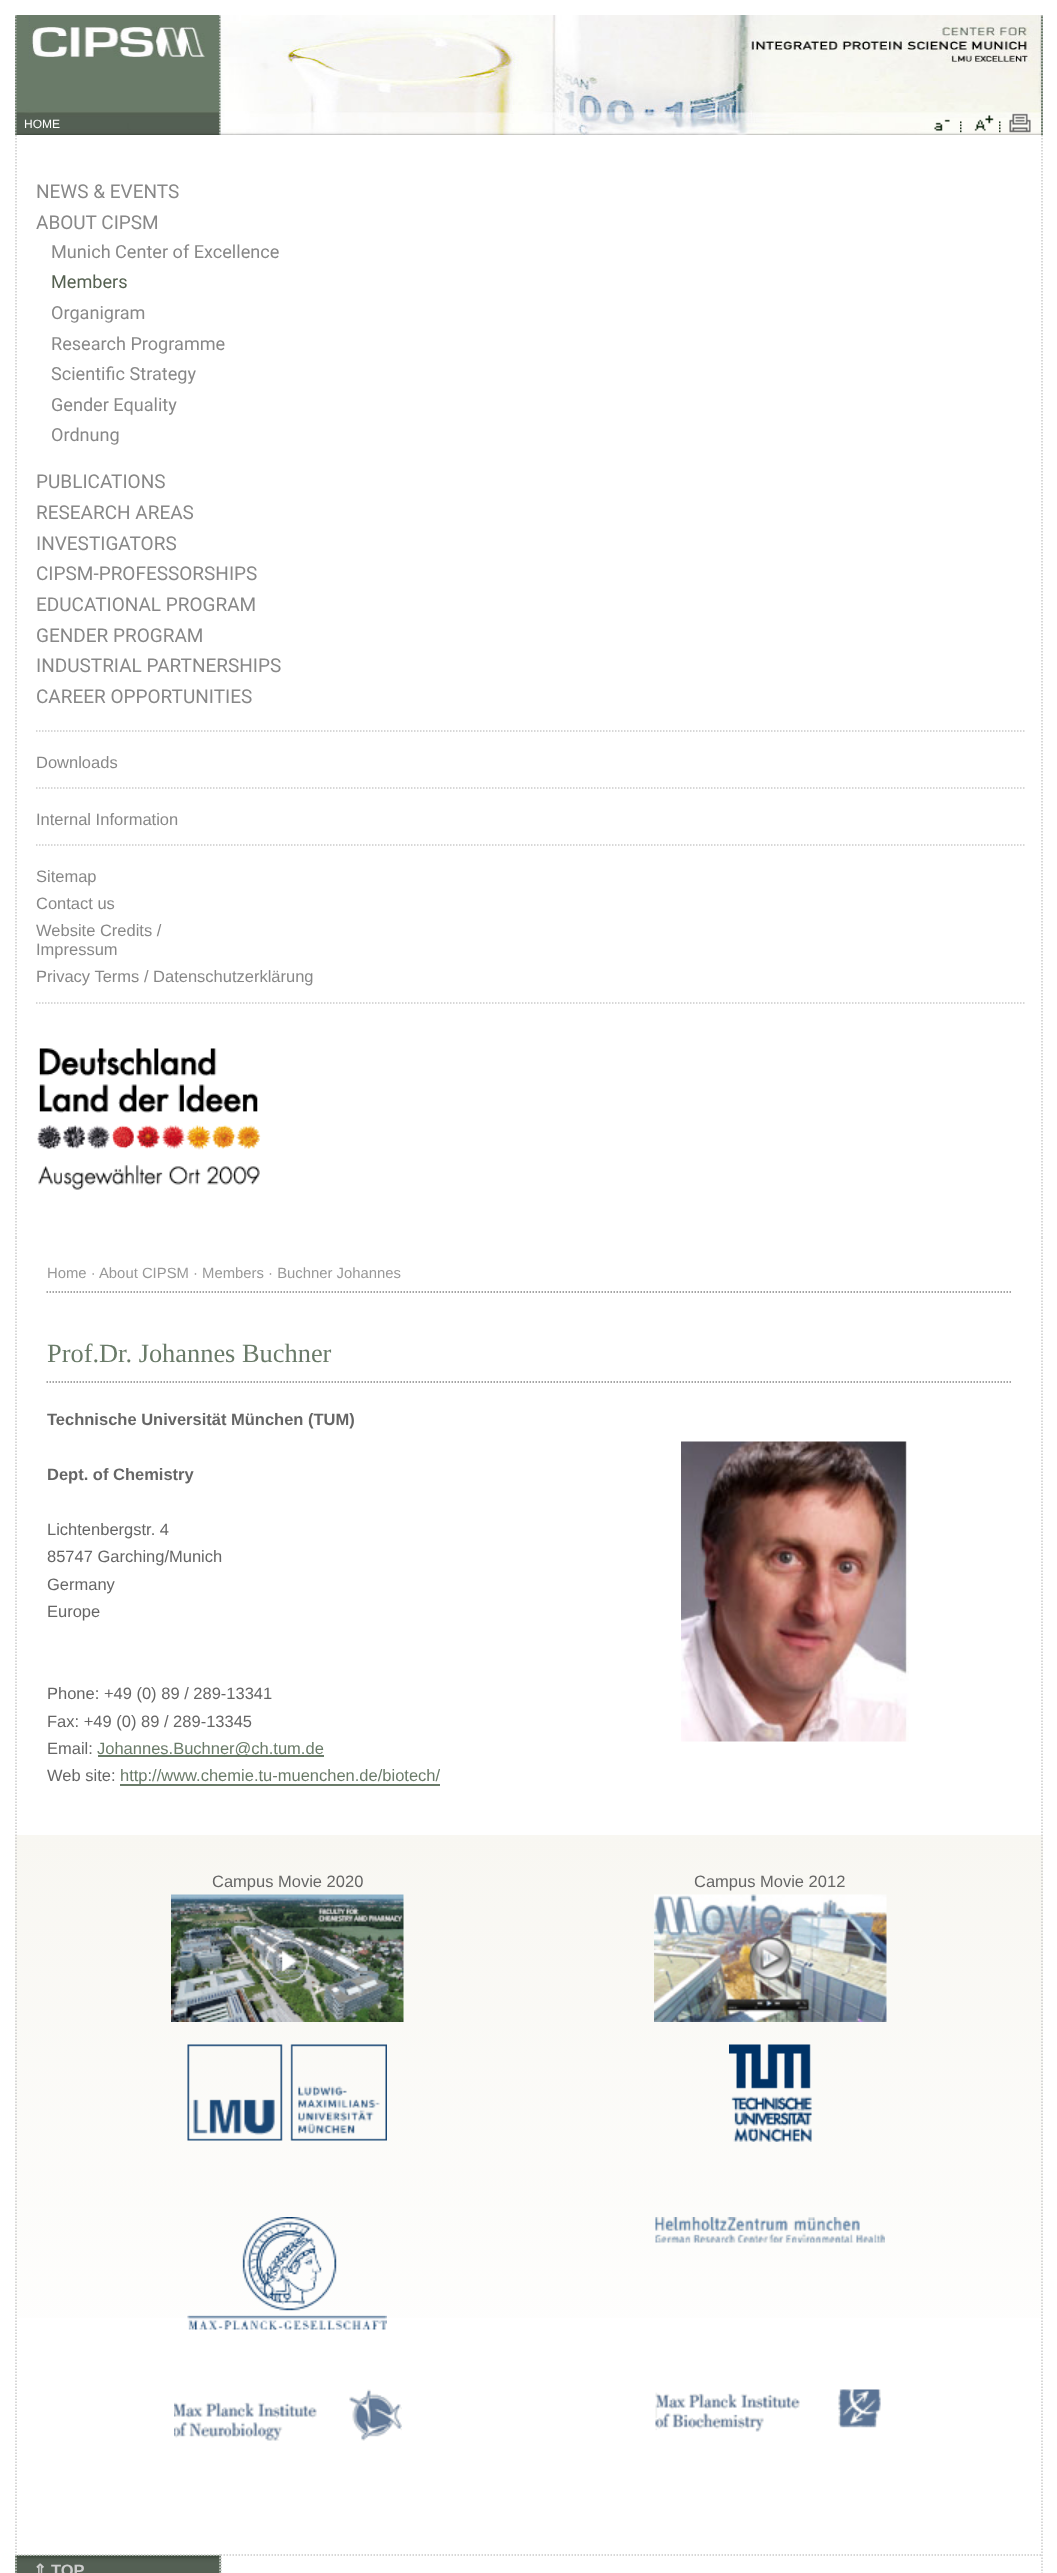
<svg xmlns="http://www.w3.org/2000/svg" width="1057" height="2573">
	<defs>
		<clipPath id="clip1"><rect x="0" y="15" width="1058" height="120" /></clipPath>
		<linearGradient id="g1" gradientUnits="userSpaceOnUse" x1="529" y1="1835" x2="529" y2="2555"><stop offset="0" stop-color="#FFFFFF" /><stop offset="0" stop-color="#F8F7F2" /><stop offset="0.83" stop-color="#FFFFFF" /></linearGradient>
	</defs>
	<rect width="100%" height="100%" fill="#FFFFFF" />
	<rect x="15" y="15" width="206" height="120" fill="#6A7B69" />
	<g clip-path="url(#clip1)">
		<path d="M220 15V138" fill="none" stroke="#CCCCCC" stroke-width="1.5" stroke-dasharray="1.5 1.5" />
		<path d="M16 15V138" fill="none" stroke="#CCCCCC" stroke-width="1.5" stroke-dasharray="1.5 1.5" />
	</g>
	<image x="16" y="15" width="203" height="120" href="assets/img1.png" />
	<rect x="1041" y="15" width="2" height="120" fill="#6A7B69" />
	<g clip-path="url(#clip1)">
		<path d="M1042 15V138" fill="none" stroke="#CCCCCC" stroke-width="1.5" stroke-dasharray="1.5 1.5" />
	</g>
	<image x="220" y="15" width="821" height="120" href="assets/img2.png" />
	<text x="24" y="128" font-family="Liberation Sans" font-size="12" fill="#FFFFFF">HOME</text>
	<image x="934" y="119" width="16" height="12" href="assets/img3.png" />
	<image x="960" y="121" width="2" height="12" href="assets/img4.png" />
	<image x="974" y="115" width="20" height="16" href="assets/img5.png" />
	<image x="999" y="121" width="2" height="12" href="assets/img6.png" />
	<image x="1009" y="113" width="22" height="20" href="assets/img7.png" />
	<path d="M1042 135V1237.5" fill="none" stroke="#CCCCCC" stroke-width="1.5" stroke-dasharray="1.5 1.5" />
	<path d="M16 135V1237.5" fill="none" stroke="#CCCCCC" stroke-width="1.5" stroke-dasharray="1.5 1.5" />
	<g font-family="Roboto" font-size="19" fill="#888888">
		<text x="36" y="198">NEWS &amp; EVENTS</text>
		<text x="36" y="229">ABOUT CIPSM</text>
	</g>
	<text x="51" y="258" font-family="Roboto" font-size="18.1" fill="#888888">Munich Center of Excellence</text>
	<text x="51" y="288" font-family="Roboto" font-size="18.1" fill="#556151">Members</text>
	<g font-family="Roboto" font-size="18.1" fill="#888888">
		<text x="51" y="319">Organigram</text>
		<text x="51" y="350">Research Programme</text>
		<text x="51" y="380">Scientific Strategy</text>
		<text x="51" y="411">Gender Equality</text>
		<text x="51" y="441">Ordnung</text>
	</g>
	<g font-family="Roboto" font-size="19" fill="#888888">
		<text x="36" y="488">PUBLICATIONS</text>
		<text x="36" y="519">RESEARCH AREAS</text>
		<text x="36" y="550">INVESTIGATORS</text>
		<text x="36" y="580">CIPSM-PROFESSORSHIPS</text>
		<text x="36" y="611">EDUCATIONAL PROGRAM</text>
		<text x="36" y="642">GENDER PROGRAM</text>
		<text x="36" y="672">INDUSTRIAL PARTNERSHIPS</text>
		<text x="36" y="703">CAREER OPPORTUNITIES</text>
	</g>
	<path d="M36 731H1026" fill="none" stroke="#CCCCCC" stroke-width="1.5" stroke-dasharray="1.5 1.5" />
	<text x="36" y="768" font-family="Liberation Sans" font-size="16.5" fill="#888888">Downloads</text>
	<path d="M36 788H1026" fill="none" stroke="#CCCCCC" stroke-width="1.5" stroke-dasharray="1.5 1.5" />
	<text x="36" y="825" font-family="Liberation Sans" font-size="16.5" fill="#888888">Internal Information</text>
	<path d="M36 845H1026" fill="none" stroke="#CCCCCC" stroke-width="1.5" stroke-dasharray="1.5 1.5" />
	<g font-family="Liberation Sans" font-size="16.5" fill="#888888">
		<text x="36" y="882">Sitemap</text>
		<text x="36" y="909">Contact us</text>
		<text x="36" y="936">Website Credits /</text>
		<text x="36" y="955">Impressum</text>
		<text x="36" y="982">Privacy Terms / Datenschutzerklärung</text>
	</g>
	<path d="M36 1003H1026" fill="none" stroke="#CCCCCC" stroke-width="1.5" stroke-dasharray="1.5 1.5" />
	<image x="37" y="1048" width="224" height="142" href="assets/img8.png" />
	<path d="M1042 1237.5V1834.5" fill="none" stroke="#CCCCCC" stroke-width="1.5" stroke-dasharray="1.5 1.5" />
	<path d="M16 1237.5V1834.5" fill="none" stroke="#CCCCCC" stroke-width="1.5" stroke-dasharray="1.5 1.5" />
	<path d="M46.5 1292H1011" fill="none" stroke="#888888" stroke-width="1.5" stroke-dasharray="1.5 1.5" />
	<text x="47" y="1278" font-family="Liberation Sans" font-size="14.85" fill="#999999">Home · About CIPSM · Members · Buchner Johannes</text>
	<path d="M46.5 1382H1011" fill="none" stroke="#888888" stroke-width="1.5" stroke-dasharray="1.5 1.5" />
	<text x="47" y="1362" font-family="Liberation Serif" font-size="26.4" fill="#6A7B69">Prof.Dr. Johannes Buchner</text>
	<g font-family="Liberation Sans" font-size="16.5" font-weight="700" fill="#666666">
		<text x="47" y="1425">Technische Universität München (TUM)</text>
		<text x="47" y="1480">Dept. of Chemistry</text>
	</g>
	<g font-family="Liberation Sans" font-size="16.5" fill="#666666">
		<text x="47" y="1535">Lichtenbergstr. 4</text>
		<text x="47" y="1562">85747 Garching/Munich</text>
		<text x="47" y="1590">Germany</text>
		<text x="47" y="1617">Europe</text>
		<text x="47" y="1699">Phone: +49 (0) 89 / 289-13341</text>
		<text x="47" y="1727">Fax: +49 (0) 89 / 289-13345</text>
		<text x="47" y="1754">Email:</text>
	</g>
	<rect x="98" y="1755" width="226" height="2" fill="#6A7B69" />
	<text x="97" y="1754" font-family="Liberation Sans" font-size="16.5" fill="#6A7B69">Johannes.Buchner@ch.tum.de</text>
	<text x="47" y="1781" font-family="Liberation Sans" font-size="16.5" fill="#666666">Web site:</text>
	<rect x="120" y="1784" width="320" height="2" fill="#6A7B69" />
	<text x="120" y="1781" font-family="Liberation Sans" font-size="16.5" fill="#6A7B69">http://www.chemie.tu-muenchen.de/biotech/</text>
	<image x="681" y="1441" width="228" height="301" href="assets/img9.png" />
	<rect x="15" y="1835" width="1028" height="483" fill="url(#g1)" />
	<path d="M1042 1834.5V2554.5" fill="none" stroke="#CCCCCC" stroke-width="1.5" stroke-dasharray="1.5 1.5" />
	<path d="M16 1834.5V2554.5" fill="none" stroke="#CCCCCC" stroke-width="1.5" stroke-dasharray="1.5 1.5" />
	<text x="212" y="1887" font-family="Liberation Sans" font-size="16.5" fill="#666666">Campus Movie 2020</text>
	<image x="171" y="1894" width="233" height="128" href="assets/img10.png" />
	<text x="694" y="1887" font-family="Liberation Sans" font-size="16.5" fill="#666666">Campus Movie 2012</text>
	<image x="654" y="1894" width="233" height="128" href="assets/img11.png" />
	<image x="187" y="2044" width="200" height="97" href="assets/img12.png" />
	<image x="729" y="2044" width="83" height="98" href="assets/img13.png" />
	<image x="187" y="2217" width="200" height="113" href="assets/img14.png" />
	<image x="655" y="2217" width="230" height="26" href="assets/img15.png" />
	<image x="174" y="2389" width="228" height="52" href="assets/img16.png" />
	<image x="655" y="2389" width="226" height="43" href="assets/img17.png" />
	<rect x="15" y="2555" width="206" height="18" fill="#6A7B69" />
	<image x="16" y="2556" width="203" height="17" href="assets/img18.png" />
	<path d="M15 2555H220.5" fill="none" stroke="#CCCCCC" stroke-width="1.5" stroke-dasharray="1.5 1.5" />
	<path d="M220 2554.5V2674.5" fill="none" stroke="#CCCCCC" stroke-width="1.5" stroke-dasharray="1.5 1.5" />
	<path d="M16 2554.5V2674.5" fill="none" stroke="#CCCCCC" stroke-width="1.5" stroke-dasharray="1.5 1.5" />
	<text x="33" y="2576" font-family="DejaVu Sans" font-size="16.5" font-weight="700" fill="#CCCCCC">⇑</text>
	<text x="51" y="2576" font-family="Liberation Sans" font-size="16.5" font-weight="700" fill="#CCCCCC">TOP</text>
	<path d="M220.5 2555H1042.5" fill="none" stroke="#CCCCCC" stroke-width="1.5" stroke-dasharray="1.5 1.5" />
	<path d="M1042 2554.5V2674.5" fill="none" stroke="#CCCCCC" stroke-width="1.5" stroke-dasharray="1.5 1.5" />
	<path d="M221 2554.5V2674.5" fill="none" stroke="#CCCCCC" stroke-width="1.5" stroke-dasharray="1.5 1.5" />
</svg>
